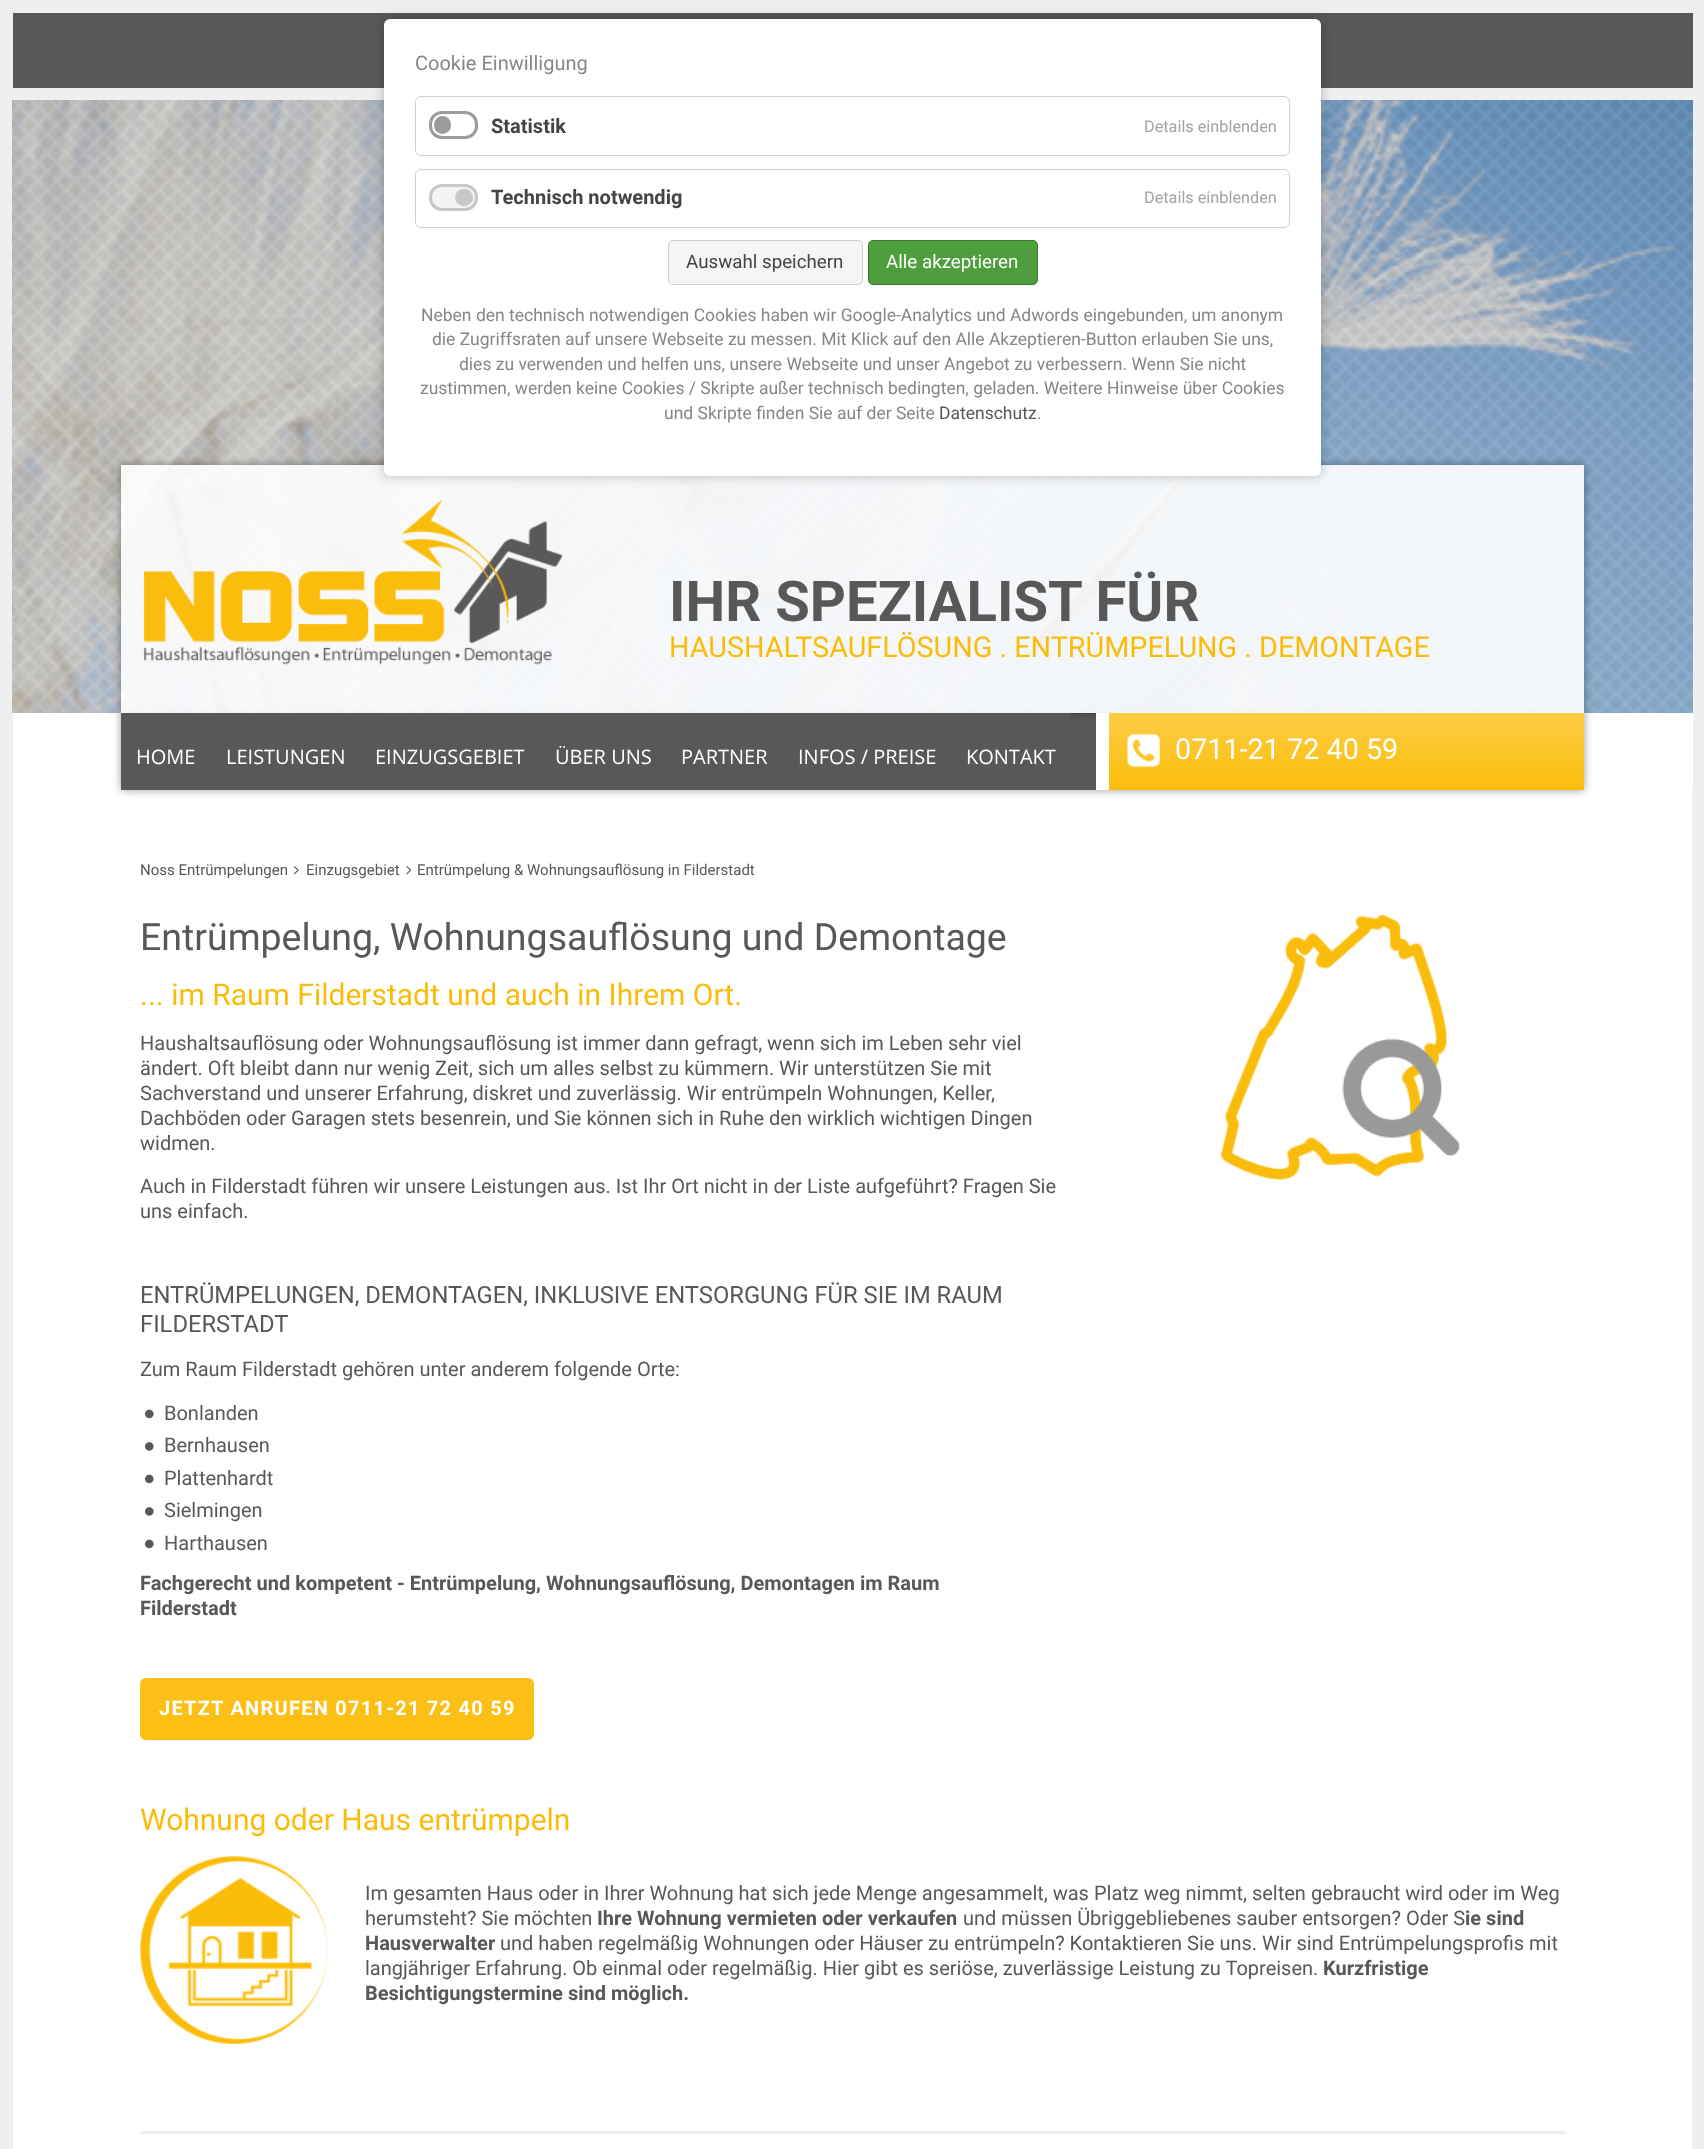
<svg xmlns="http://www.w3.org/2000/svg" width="1704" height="2149">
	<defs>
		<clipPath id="clip1"><path d="M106 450H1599V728H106ZM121 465H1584V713H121Z" clip-rule="evenodd" /></clipPath>
		<linearGradient id="g1" gradientUnits="userSpaceOnUse" x1="1346" y1="713" x2="1346" y2="790"><stop offset="0" stop-color="#FCCD45" /><stop offset="1" stop-color="#FBBD0B" /></linearGradient>
		<linearGradient id="g2" gradientUnits="userSpaceOnUse" x1="337" y1="1678" x2="337" y2="1740"><stop offset="0" stop-color="#FCC019" /><stop offset="1" stop-color="#FCBE11" /></linearGradient>
	</defs>
	<rect width="100%" height="100%" fill="#FFFFFF" />
	<rect x="6.5" y="6.5" width="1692" height="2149" fill="none" stroke="#EFEFEF" stroke-width="13" />
	<rect x="13" y="13" width="1680" height="75" fill="#595858" />
	<rect x="13" y="88" width="1679" height="12" fill="#EFEFEF" />
	<image x="12" y="100" width="1681" height="613" href="assets/img1.png" />
	<rect x="121" y="713" width="1463" height="77" fill="#000000" fill-opacity="0.4" filter="blur(4.5px)" />
	<rect x="121" y="713" width="975" height="77" fill="#595858" />
	<g clip-path="url(#clip1)">
		<rect x="121" y="465" width="1463" height="248" fill="#000000" fill-opacity="0.4" filter="blur(4.5px)" />
	</g>
	<rect x="121" y="465" width="1463" height="248" fill="#FFFFFF" fill-opacity="0.9" />
	<rect x="384" y="19" width="937" height="457" rx="6" fill="#000000" fill-opacity="0.25" filter="blur(6px)" />
	<rect x="384" y="19" width="937" height="457" rx="6" fill="#FFFFFF" />
	<text x="415" y="70" font-family="Roboto" font-size="20" fill="#868686">Cookie Einwilligung</text>
	<rect x="415.5" y="96.5" width="874" height="59" rx="5.5" fill="none" stroke="#D0D0D0" />
	<rect x="430.5" y="112.5" width="46" height="25" rx="11.5" fill="none" stroke="#9C9B99" stroke-width="3" />
	<rect x="434" y="116" width="17" height="18" rx="8.5" fill="#9C9B99" />
	<text x="491" y="133" font-family="'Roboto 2'" font-size="20" font-weight="700" fill="#444444">Statistik</text>
	<text x="1144" y="132" font-family="Roboto" font-size="16.25" fill="#A2A2A2">Details einblenden</text>
	<rect x="415.5" y="169.5" width="874" height="58" rx="5.5" fill="none" stroke="#D0D0D0" />
	<path d="M416.5 170.5L417 171V170" fill="none" stroke="#FAFAFA" stroke-width="0.2" />
	<rect x="430.5" y="185.5" width="46" height="24" rx="11.5" fill="#F4F4F4" stroke="#C8C7C5" stroke-width="3" />
	<rect x="455" y="189" width="18" height="17" rx="8.5" fill="#C8C7C5" />
	<text x="491" y="204" font-family="'Roboto 2'" font-size="20" font-weight="700" fill="#444444">Technisch notwendig</text>
	<text x="1144" y="203" font-family="Roboto" font-size="16.25" fill="#A2A2A2">Details einblenden</text>
	<rect x="668.5" y="240.5" width="194" height="44" rx="4.5" fill="#F5F5F5" stroke="#CFCFCF" />
	<text x="686" y="268" font-family="Roboto" font-size="18.75" fill="#444444">Auswahl speichern</text>
	<rect x="868.5" y="240.5" width="169" height="44" rx="4.5" fill="#4E9E3E" stroke="#3E7830" />
	<text x="886" y="268" font-family="Roboto" font-size="18.75" fill="#FFFFFF">Alle akzeptieren</text>
	<g font-family="Roboto" font-size="17.5" fill="#868686">
		<text x="421" y="321">Neben den technisch notwendigen Cookies haben wir Google-Analytics und Adwords eingebunden, um anonym</text>
		<text x="432" y="345">die Zugriffsraten auf unsere Webseite zu messen. Mit Klick auf den Alle Akzeptieren-Button erlauben Sie uns,</text>
		<text x="459" y="370">dies zu verwenden und helfen uns, unsere Webseite und unser Angebot zu verbessern. Wenn Sie nicht</text>
		<text x="420" y="394">zustimmen, werden keine Cookies / Skripte außer technisch bedingten, geladen. Weitere Hinweise über Cookies</text>
		<text x="664" y="419">und Skripte finden Sie auf der Seite</text>
	</g>
	<text x="939" y="419" font-family="Roboto" font-size="17.5" fill="#595858">Datenschutz</text>
	<text x="1037" y="419" font-family="Roboto" font-size="17.5" fill="#868686">.</text>
	<image x="143" y="499" width="420" height="166" href="assets/img2.png" />
	<text x="669" y="621" font-family="Roboto" font-size="56.25" font-weight="700" fill="#595858">IHR SPEZIALIST FÜR</text>
	<text x="669" y="657" font-family="Roboto" font-size="28.75" fill="#FABC0A">HAUSHALTSAUFLÖSUNG . ENTRÜMPELUNG . DEMONTAGE</text>
	<rect x="1692" y="713" width="1" height="77" fill="#FFFFFF" />
	<rect x="121" y="713" width="950" height="7" fill="#595858" />
	<g font-family="Open Sans" font-size="20" fill="#FFFFFF">
		<text x="136" y="764">HOME</text>
		<text x="226" y="764">LEISTUNGEN</text>
		<text x="375" y="764">EINZUGSGEBIET</text>
		<text x="555" y="764">ÜBER UNS</text>
		<text x="681" y="764">PARTNER</text>
		<text x="798" y="764">INFOS / PREISE</text>
		<text x="966" y="764">KONTAKT</text>
	</g>
	<rect x="1109" y="713" width="475" height="77" fill="url(#g1)" />
	<rect x="1096" y="713" width="13" height="77" fill="#FFFFFF" />
	<image x="1127" y="733" width="33" height="35" href="assets/img3.png" />
	<text x="1175" y="759" font-family="Roboto" font-size="28.75" fill="#FFFFFF">0711-21 72 40 59</text>
	<text x="140" y="875" font-family="Roboto" font-size="15" fill="#595858">Noss Entrümpelungen</text>
	<image x="293" y="866" width="6" height="9" href="assets/img4.png" />
	<text x="306" y="875" font-family="Roboto" font-size="15" fill="#595858">Einzugsgebiet</text>
	<image x="406" y="866" width="6" height="9" href="assets/img5.png" />
	<text x="417" y="875" font-family="Roboto" font-size="15" fill="#595858">Entrümpelung &amp; Wohnungsauflösung in Filderstadt</text>
	<text x="140" y="950" font-family="Roboto" font-size="37.5" fill="#595858">Entrümpelung, Wohnungsauflösung und Demontage</text>
	<text x="140" y="1005" font-family="Roboto" font-size="30" fill="#FABC0A">... im Raum Filderstadt und auch in Ihrem Ort.</text>
	<g font-family="Roboto" font-size="20" fill="#595858">
		<text x="140" y="1050">Haushaltsauflösung oder Wohnungsauflösung ist immer dann gefragt, wenn sich im Leben sehr viel</text>
		<text x="140" y="1075">ändert. Oft bleibt dann nur wenig Zeit, sich um alles selbst zu kümmern. Wir unterstützen Sie mit</text>
		<text x="140" y="1100">Sachverstand und unserer Erfahrung, diskret und zuverlässig. Wir entrümpeln Wohnungen, Keller,</text>
		<text x="140" y="1125">Dachböden oder Garagen stets besenrein, und Sie können sich in Ruhe den wirklich wichtigen Dingen</text>
		<text x="140" y="1150">widmen.</text>
		<text x="140" y="1193">Auch in Filderstadt führen wir unsere Leistungen aus. Ist Ihr Ort nicht in der Liste aufgeführt? Fragen Sie</text>
		<text x="140" y="1218">uns einfach.</text>
	</g>
	<image x="1221" y="915" width="239" height="265" href="assets/img6.png" />
	<g font-family="Roboto" font-size="23.75" fill="#595858">
		<text x="140" y="1303">ENTRÜMPELUNGEN, DEMONTAGEN, INKLUSIVE ENTSORGUNG FÜR SIE IM RAUM</text>
		<text x="140" y="1332">FILDERSTADT</text>
	</g>
	<text x="140" y="1376" font-family="Roboto" font-size="20" fill="#595858">Zum Raum Filderstadt gehören unter anderem folgende Orte:</text>
	<image x="145" y="1409" width="9" height="10" href="assets/img7.png" />
	<text x="164" y="1420" font-family="Roboto" font-size="20" fill="#595858">Bonlanden</text>
	<image x="145" y="1442" width="9" height="9" href="assets/img8.png" />
	<text x="164" y="1452" font-family="Roboto" font-size="20" fill="#595858">Bernhausen</text>
	<image x="145" y="1474" width="9" height="10" href="assets/img7.png" />
	<text x="164" y="1485" font-family="Roboto" font-size="20" fill="#595858">Plattenhardt</text>
	<image x="145" y="1507" width="9" height="9" href="assets/img8.png" />
	<text x="164" y="1517" font-family="Roboto" font-size="20" fill="#595858">Sielmingen</text>
	<image x="145" y="1539" width="9" height="10" href="assets/img7.png" />
	<text x="164" y="1550" font-family="Roboto" font-size="20" fill="#595858">Harthausen</text>
	<g font-family="'Roboto 2'" font-size="20" font-weight="700" fill="#595858">
		<text x="140" y="1590">Fachgerecht und kompetent - Entrümpelung, Wohnungsauflösung, Demontagen im Raum</text>
		<text x="140" y="1615">Filderstadt</text>
	</g>
	<rect x="140" y="1678" width="394" height="62" rx="6" fill="url(#g2)" />
	<text x="159" y="1715" font-family="'Roboto 2'" font-size="20" font-weight="700" letter-spacing="1.25" fill="#FFFFFF">JETZT ANRUFEN 0711-21 72 40 59</text>
	<text x="140" y="1830" font-family="Roboto" font-size="30" fill="#FABC0A">Wohnung oder Haus entrümpeln</text>
	<image x="140" y="1856" width="188" height="188" href="assets/img9.png" />
	<g font-family="Roboto" font-size="20" fill="#595858">
		<text x="365" y="1900">Im gesamten Haus oder in Ihrer Wohnung hat sich jede Menge angesammelt, was Platz weg nimmt, selten gebraucht wird oder im Weg</text>
		<text x="365" y="1925">herumsteht? Sie möchten</text>
	</g>
	<text x="597" y="1925" font-family="'Roboto 2'" font-size="20" font-weight="700" fill="#595858">Ihre Wohnung vermieten oder verkaufen</text>
	<text x="963" y="1925" font-family="Roboto" font-size="20" fill="#595858">und müssen Übriggebliebenes sauber entsorgen? Oder S</text>
	<g font-family="'Roboto 2'" font-size="20" font-weight="700" fill="#595858">
		<text x="1465" y="1925">ie sind</text>
		<text x="365" y="1950">Hausverwalter</text>
	</g>
	<g font-family="Roboto" font-size="20" fill="#595858">
		<text x="500" y="1950">und haben regelmäßig Wohnungen oder Häuser zu entrümpeln? Kontaktieren Sie uns. Wir sind Entrümpelungsprofis mit</text>
		<text x="365" y="1975">langjähriger Erfahrung. Ob einmal oder regelmäßig. Hier gibt es seriöse, zuverlässige Leistung zu Topreisen.</text>
	</g>
	<g font-family="'Roboto 2'" font-size="20" font-weight="700" fill="#595858">
		<text x="1323" y="1975">Kurzfristige</text>
		<text x="365" y="2000">Besichtigungstermine sind möglich.</text>
	</g>
	<rect x="140" y="2131" width="1425" height="3" fill="#EEEEEE" />
</svg>
